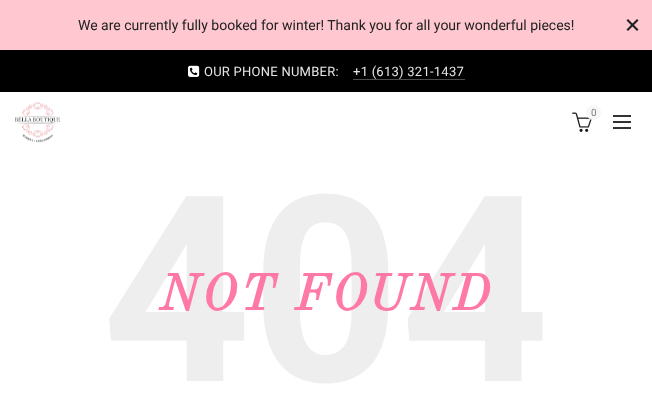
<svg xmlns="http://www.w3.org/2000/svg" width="652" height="405">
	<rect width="100%" height="100%" fill="#FFC8D1" />
	<text x="78" y="30" font-family="Roboto" font-size="14" fill="#212121">We are currently fully booked for winter! Thank you for all your wonderful pieces!</text>
	<path d="M628 19L638.5 29.5L637 31L626.5 20.5Z" fill="#212121" />
	<path d="M626.5 29.5L637 19L638.5 20.5L628 31Z" fill="#212121" />
	<rect x="0" y="92" width="652" height="313" fill="#FFFFFF" />
	<rect x="0" y="50" width="652" height="42" fill="#000000" />
	<image x="188" y="65" width="12" height="12" href="assets/img1.png" />
	<g font-family="Roboto" font-size="13" letter-spacing="0.25" fill="#E6E6E6">
		<text x="204" y="76">OUR PHONE NUMBER:</text>
		<text x="353" y="76">+1 (613) 321-1437</text>
	</g>
	<rect x="353" y="79" width="112" height="1" fill="#4D4D4D" />
	<image x="15" y="102" width="45" height="41" href="assets/img2.png" />
	<image x="572" y="112" width="20" height="20" href="assets/img3.png" />
	<circle cx="593.5" cy="112.5" r="7.5" fill="#F7F7F7" />
	<text x="591" y="116" font-family="Roboto" font-size="10" fill="#7E7E7E">0</text>
	<rect x="613" y="121" width="18" height="2" fill="#333333" />
	<rect x="613" y="115" width="18" height="2" fill="#333333" />
	<rect x="613" y="127" width="18" height="2" fill="#333333" />
	<text x="102" y="381" font-family="Roboto" font-size="260" font-weight="700" fill="#EEEEEE">404</text>
	<text x="159" y="310" font-family="Old Standard TT" font-size="50" font-weight="700" font-style="italic" letter-spacing="3" fill="#FE79A6">NOT FOUND</text>
</svg>
